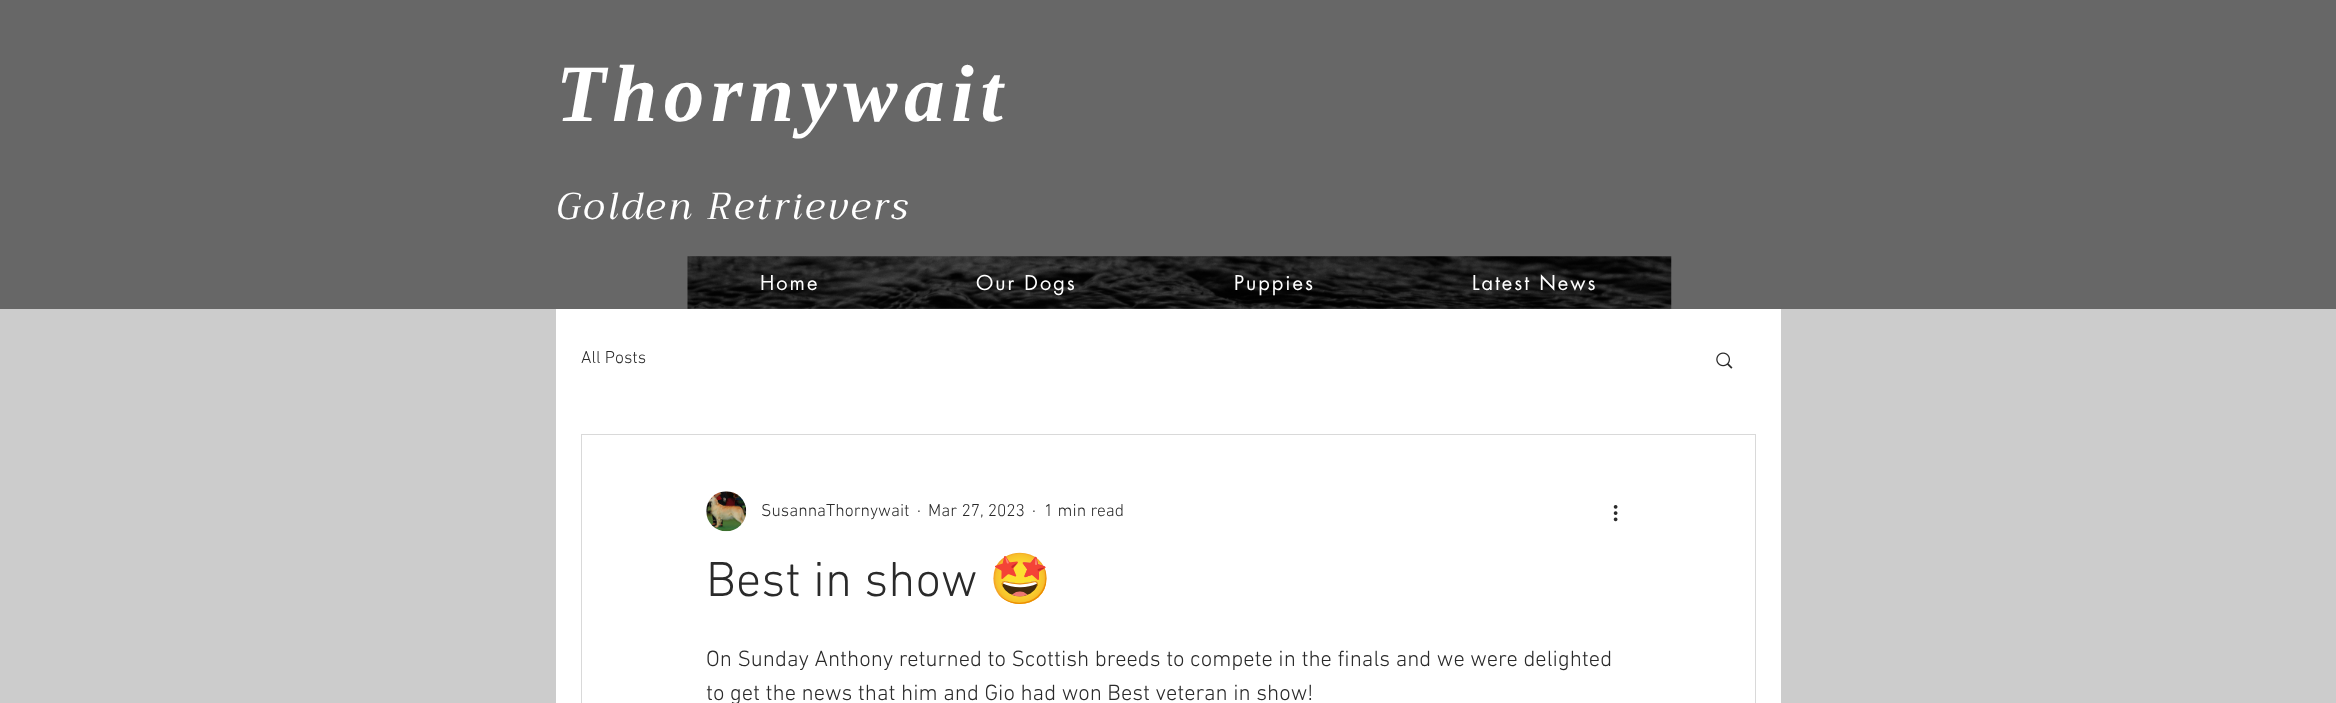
<svg xmlns="http://www.w3.org/2000/svg" width="2336" height="703">
	<rect width="100%" height="100%" fill="#CCCCCC" />
	<rect x="0" y="0" width="2336" height="309" fill="#676767" />
	<text x="556" y="121" font-family="Liberation Serif" font-size="81.25" font-weight="700" font-style="italic" letter-spacing="6.5" fill="#FFFFFF">Thornywait</text>
	<text x="556" y="219" font-family="Trirong" font-size="37.5" font-style="italic" letter-spacing="3" fill="#FFFFFF">Golden Retrievers</text>
	<image x="687" y="256" width="985" height="53" href="assets/img1.png" />
	<g font-family="futura" font-size="20" letter-spacing="2" fill="#FFFFFF">
		<text x="760" y="290">Home</text>
		<text x="976" y="290">Our Dogs</text>
		<text x="1234" y="290">Puppies</text>
		<text x="1472" y="290">Latest News</text>
	</g>
	<rect x="556" y="309" width="1225" height="394" fill="#FFFFFF" />
	<text x="581" y="363" font-family="'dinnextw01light'" font-size="17.5" font-weight="300" fill="#2A2A2A">All Posts</text>
	<image x="1716" y="352" width="17" height="17" href="assets/img2.png" />
	<rect x="581.5" y="434.5" width="1174" height="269" fill="none" stroke="#D9D9D9" />
	<image x="706" y="491" width="41" height="41" href="assets/img3.png" />
	<g font-family="'dinnextw01light'" font-size="17.5" font-weight="300" fill="#2A2A2A">
		<text x="761" y="516">SusannaThornywait</text>
		<text x="917" y="516">·</text>
		<text x="928" y="516">Mar 27, 2023</text>
		<text x="1032" y="516">·</text>
		<text x="1044" y="516">1 min read</text>
	</g>
	<image x="1613" y="505" width="5" height="17" href="assets/img4.png" />
	<text x="706" y="596" font-family="'dinnextw01light'" font-size="50" font-weight="300" fill="#2A2A2A">Best in show</text>
	<text x="989" y="596" font-family="Noto Color Emoji" font-size="50" fill="#2A2A2A">🤩</text>
	<g font-family="'dinnextw01light'" font-size="22.5" font-weight="300" fill="#2A2A2A">
		<text x="706" y="666">On Sunday Anthony returned to Scottish breeds to compete in the finals and we were delighted</text>
		<text x="706" y="700">to get the news that him and Gio had won Best veteran in show!</text>
	</g>
</svg>
